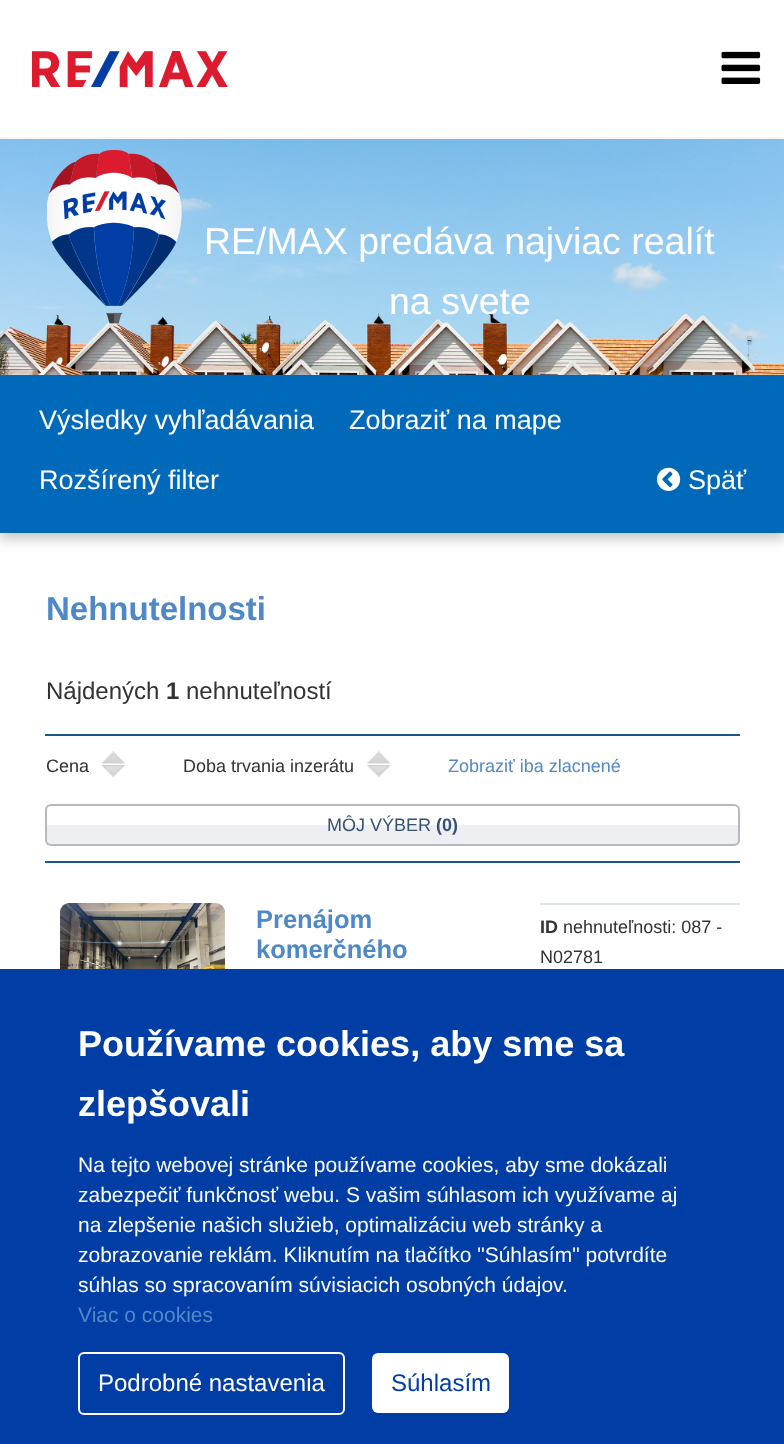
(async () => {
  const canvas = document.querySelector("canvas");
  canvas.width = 784;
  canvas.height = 1444;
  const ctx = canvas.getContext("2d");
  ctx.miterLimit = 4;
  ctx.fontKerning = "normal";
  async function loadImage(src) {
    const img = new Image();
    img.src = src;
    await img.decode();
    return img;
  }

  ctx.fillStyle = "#ffffff";
  ctx.fillRect(0, 0, 784, 1444);
  ctx.fillStyle = "#f8f6f4";
  ctx.fillRect(0, 137, 784, 2);
  ctx.drawImage(await loadImage("img/1.png"), 32, 51, 196, 36);
  ctx.drawImage(await loadImage("img/2.png"), 721, 51, 40, 33);
  ctx.fillStyle = "rgba(0, 0, 0, 0.2)";
  ctx.filter = "blur(6px)";
  ctx.beginPath();
  ctx.rect(0, 383, 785, 157);
  ctx.fill();
  ctx.filter = "none";
  ctx.drawImage(await loadImage("img/3.png"), 0, 139, 784, 236);
  ctx.drawImage(await loadImage("img/4.png"), 47, 150, 135, 174);
  ctx.fillStyle = "#0069ba";
  ctx.fillRect(0, 375, 784, 158);
  ctx.drawImage(await loadImage("img/5.png"), 657, 467, 24, 24);
  ctx.fillStyle = "#1a5881";
  ctx.fillRect(45, 734, 695, 2);
  ctx.fillRect(45, 861, 695, 2);
  ctx.drawImage(await loadImage("img/6.png"), 102, 751, 23, 13);
  ctx.drawImage(await loadImage("img/7.png"), 102, 765, 23, 13);
  ctx.drawImage(await loadImage("img/8.png"), 367, 751, 23, 13);
  ctx.drawImage(await loadImage("img/9.png"), 367, 765, 23, 13);
  ctx.save();
  ctx.beginPath();
  ctx.roundRect(45, 804, 695, 42, 6);
  ctx.clip();
  ctx.fillStyle = "#edeff3";
  ctx.fillRect(45, 825, 695, 20);
  ctx.restore();
  ctx.beginPath();
  ctx.roundRect(46, 805, 693, 40, 5);
  ctx.strokeStyle = "#b6b9bf";
  ctx.lineWidth = 2;
  ctx.stroke();
  ctx.drawImage(await loadImage("img/10.png"), 60, 903, 165, 66);
  ctx.fillStyle = "#dde4ec";
  ctx.fillRect(540, 903, 200, 2);
  ctx.fillStyle = "#003da5";
  ctx.fillRect(0, 969, 784, 475);
  ctx.beginPath();
  ctx.roundRect(79, 1353, 265, 61, 5);
  ctx.strokeStyle = "#ffffff";
  ctx.stroke();
  ctx.fillStyle = "#ffffff";
  ctx.beginPath();
  ctx.roundRect(372, 1353, 137, 60, 6);
  ctx.fill();
  ctx.font = "37.5px Liberation Sans";
  ctx.fillText("RE/MAX predáva najviac realít", 204, 254);
  ctx.fillText("na svete", 389, 314);
  ctx.font = "27px Liberation Sans";
  for (const [text, x, y] of [
    ["Výsledky vyhľadávania", 39, 429],
    ["Zobraziť na mape", 349, 429],
    ["Rozšírený filter", 39, 489],
    ["Späť", 688, 489],
  ]) {
    ctx.fillText(text, x, y);
  }
  ctx.font = "bold 33px Liberation Sans";
  ctx.fillStyle = "#4e88c7";
  ctx.fillText("Nehnutelnosti", 46, 620);
  ctx.font = "24px Liberation Sans";
  ctx.fillStyle = "#333333";
  ctx.fillText("Nájdených", 46, 699);
  ctx.font = "bold 24px Liberation Sans";
  ctx.fillText("1", 166, 699);
  ctx.font = "24px Liberation Sans";
  ctx.fillText("nehnuteľností", 186, 699);
  ctx.font = "18px Liberation Sans";
  ctx.fillText("Cena", 46, 772);
  ctx.fillText("Doba trvania inzerátu", 183, 772);
  ctx.fillStyle = "#5488c7";
  ctx.fillText("Zobraziť iba zlacnené", 448, 772);
  ctx.fillStyle = "#375075";
  ctx.fillText("MÔJ VÝBER", 327, 831);
  ctx.font = "bold 18px Liberation Sans";
  ctx.fillText("(0)", 436, 831);
  ctx.font = "bold 25.5px Liberation Sans";
  ctx.fillStyle = "#4e88c7";
  ctx.fillText("Prenájom", 256, 928);
  ctx.fillText("komerčného", 256, 958);
  ctx.font = "bold 18px Liberation Sans";
  ctx.fillStyle = "#333333";
  ctx.fillText("ID", 540, 933);
  ctx.font = "18px Liberation Sans";
  ctx.fillText("nehnuteľnosti: 087 -", 563, 933);
  ctx.fillText("N02781", 540, 963);
  ctx.font = "bold 36px Liberation Sans";
  ctx.fillStyle = "#ffffff";
  ctx.fillText("Používame cookies, aby sme sa", 78, 1056);
  ctx.fillText("zlepšovali", 78, 1116);
  ctx.font = "21px Liberation Sans";
  for (const [text, x, y] of [
    ["Na tejto webovej stránke používame cookies, aby sme dokázali", 78, 1172],
    ["zabezpečiť funkčnosť webu. S vašim súhlasom ich využívame aj", 78, 1202],
    ["na zlepšenie našich služieb, optimalizáciu web stránky a", 78, 1232],
    ["zobrazovanie reklám. Kliknutím na tlačítko \"Súhlasím\" potvrdíte", 78, 1262],
    ["súhlas so spracovaním súvisiacich osobných údajov.", 78, 1292],
  ]) {
    ctx.fillText(text, x, y);
  }
  ctx.fillStyle = "#5488c7";
  ctx.fillText("Viac o cookies", 78, 1322);
  ctx.font = "24px Liberation Sans";
  ctx.fillStyle = "#ffffff";
  ctx.fillText("Podrobné nastavenia", 98, 1391);
  ctx.fillStyle = "#003da5";
  ctx.fillText("Súhlasím", 391, 1391);
})();
